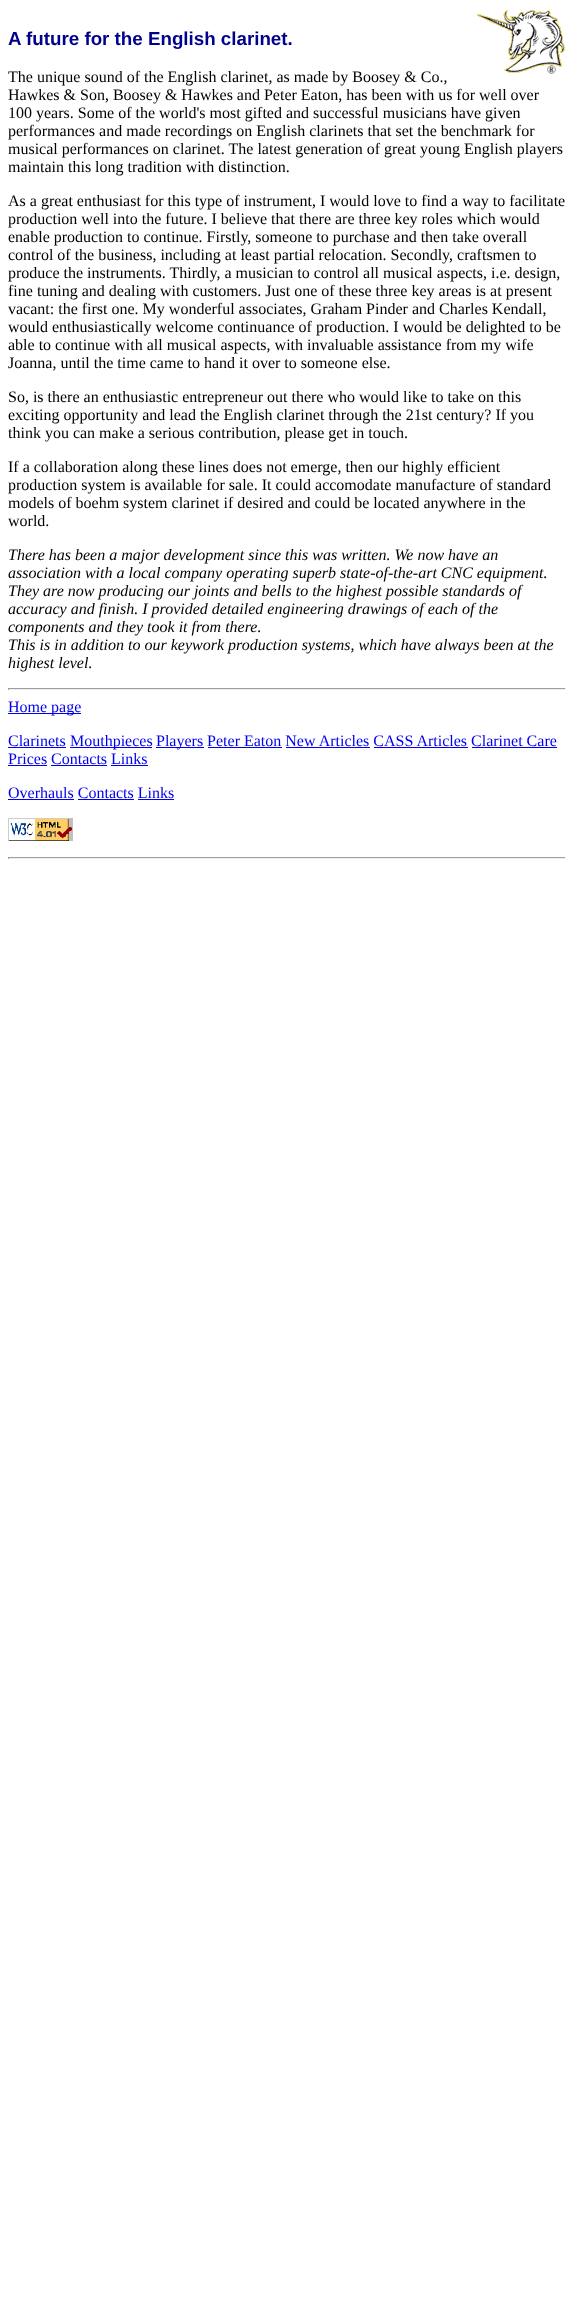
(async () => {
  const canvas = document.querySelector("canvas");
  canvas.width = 574;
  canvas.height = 2316;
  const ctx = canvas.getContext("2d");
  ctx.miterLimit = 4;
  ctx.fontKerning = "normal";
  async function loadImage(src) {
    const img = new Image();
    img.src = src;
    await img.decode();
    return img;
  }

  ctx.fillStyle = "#ffffff";
  ctx.fillRect(0, 0, 574, 2316);
  ctx.drawImage(await loadImage("img/1.png"), 477, 10, 88, 64);
  for (const [x, y, w, h, color] of [
    [8, 688, 558, 1, "#9f9f9f"],
    [565, 688, 1, 2, "#eeeeee"],
    [8, 689, 558, 1, "#eeeeee"],
    [8, 688, 1, 2, "#9f9f9f"],
    [8, 713, 73, 1, "#0000ee"],
    [8, 747, 58, 1, "#0000ee"],
    [70, 747, 82, 1, "#0000ee"],
    [156, 747, 48, 1, "#0000ee"],
    [208, 747, 74, 1, "#0000ee"],
    [286, 747, 84, 1, "#0000ee"],
    [374, 747, 94, 1, "#0000ee"],
    [472, 747, 85, 1, "#0000ee"],
    [8, 765, 39, 1, "#0000ee"],
    [51, 765, 56, 1, "#0000ee"],
    [111, 765, 37, 1, "#0000ee"],
    [8, 799, 66, 1, "#0000ee"],
    [78, 799, 56, 1, "#0000ee"],
    [138, 799, 36, 1, "#0000ee"],
  ]) {
    ctx.fillStyle = color;
    ctx.fillRect(x, y, w, h);
  }
  ctx.drawImage(await loadImage("img/2.png"), 8, 818, 65, 23);
  for (const [x, y, w, h, color] of [
    [8, 857, 558, 1, "#9f9f9f"],
    [565, 857, 1, 2, "#eeeeee"],
    [8, 858, 558, 1, "#eeeeee"],
    [8, 857, 1, 2, "#9f9f9f"],
  ]) {
    ctx.fillStyle = color;
    ctx.fillRect(x, y, w, h);
  }
  ctx.font = "bold 18.75px Liberation Sans";
  ctx.fillStyle = "#00008c";
  ctx.fillText("A future for the English clarinet.", 8, 45);
  ctx.font = "16px Liberation Serif";
  ctx.fillStyle = "#000000";
  for (const [text, x, y] of [
    ["The unique sound of the English clarinet, as made by Boosey & Co.,", 8, 82],
    ["Hawkes & Son, Boosey & Hawkes and Peter Eaton, has been with us for well over", 8, 100],
    ["100 years. Some of the world's most gifted and successful musicians have given", 8, 118],
    ["performances and made recordings on English clarinets that set the benchmark for", 8, 136],
    ["musical performances on clarinet. The latest generation of great young English players", 8, 154],
    ["maintain this long tradition with distinction.", 8, 172],
    ["As a great enthusiast for this type of instrument, I would love to find a way to facilitate", 8, 206],
    ["production well into the future. I believe that there are three key roles which would", 8, 224],
    ["enable production to continue. Firstly, someone to purchase and then take overall", 8, 242],
    ["control of the business, including at least partial relocation. Secondly, craftsmen to", 8, 260],
    ["produce the instruments. Thirdly, a musician to control all musical aspects, i.e. design,", 8, 278],
    ["fine tuning and dealing with customers. Just one of these three key areas is at present", 8, 296],
    ["vacant: the first one. My wonderful associates, Graham Pinder and Charles Kendall,", 8, 314],
    ["would enthusiastically welcome continuance of production. I would be delighted to be", 8, 332],
    ["able to continue with all musical aspects, with invaluable assistance from my wife", 8, 350],
    ["Joanna, until the time came to hand it over to someone else.", 8, 368],
    ["So, is there an enthusiastic entrepreneur out there who would like to take on this", 8, 402],
    ["exciting opportunity and lead the English clarinet through the 21st century? If you", 8, 420],
    ["think you can make a serious contribution, please get in touch.", 8, 438],
    ["If a collaboration along these lines does not emerge, then our highly efficient", 8, 472],
    ["production system is available for sale. It could accomodate manufacture of standard", 8, 490],
    ["models of boehm system clarinet if desired and could be located anywhere in the", 8, 508],
    ["world.", 8, 526],
  ]) {
    ctx.fillText(text, x, y);
  }
  ctx.font = "italic 16px Liberation Serif";
  for (const [text, x, y] of [
    ["There has been a major development since this was written. We now have an", 8, 560],
    ["association with a local company operating superb state-of-the-art CNC equipment.", 8, 578],
    ["They are now producing our joints and bells to the highest possible standards of", 8, 596],
    ["accuracy and finish. I provided detailed engineering drawings of each of the", 8, 614],
    ["components and they took it from there.", 8, 632],
    ["This is in addition to our keywork production systems, which have always been at the", 8, 650],
    ["highest level.", 8, 668],
  ]) {
    ctx.fillText(text, x, y);
  }
  ctx.font = "16px Liberation Serif";
  ctx.fillStyle = "#0000ee";
  for (const [text, x, y] of [
    ["Home page", 8, 712],
    ["Clarinets", 8, 746],
    ["Mouthpieces", 70, 746],
    ["Players Peter Eaton New Articles CASS Articles Clarinet Care", 156, 746],
    ["Prices Contacts Links", 8, 764],
    ["Overhauls Contacts Links", 8, 798],
  ]) {
    ctx.fillText(text, x, y);
  }
})();
